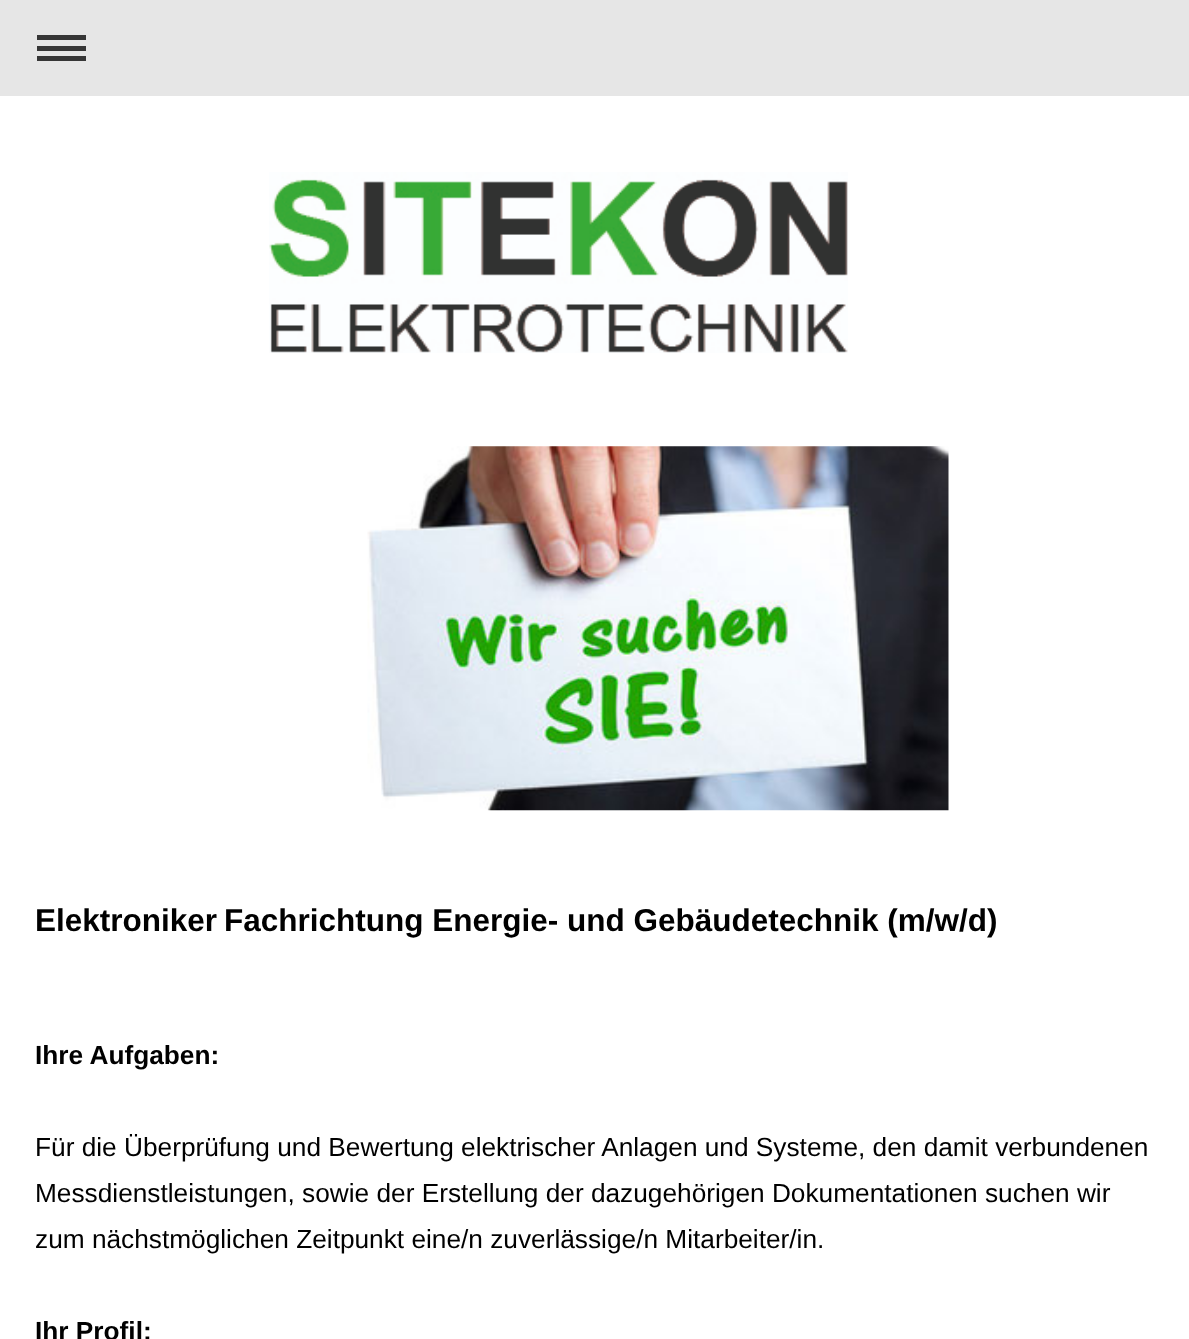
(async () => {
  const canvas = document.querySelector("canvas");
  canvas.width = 1189;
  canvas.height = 1339;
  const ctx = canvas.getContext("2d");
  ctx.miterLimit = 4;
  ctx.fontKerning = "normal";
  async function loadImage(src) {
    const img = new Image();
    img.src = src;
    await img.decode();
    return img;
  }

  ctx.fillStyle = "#ffffff";
  ctx.fillRect(0, 0, 1189, 1339);
  for (const [x, y, w, h, color] of [
    [0, 0, 1189, 96, "#e6e6e6"],
    [37, 46, 49, 5, "#363636"],
    [37, 35, 49, 5, "#363636"],
    [37, 56, 49, 5, "#363636"],
  ]) {
    ctx.fillStyle = color;
    ctx.fillRect(x, y, w, h);
  }
  ctx.drawImage(await loadImage("img/1.png"), 269, 172, 579, 181);
  ctx.drawImage(await loadImage("img/2.png"), 367, 446, 582, 365);
  ctx.font = "bold 31.5px Liberation Sans";
  ctx.fillStyle = "#000000";
  ctx.fillText("Elektroniker", 35, 931);
  ctx.fillText("Fachrichtung Energie- und Gebäudetechnik (m/w/d)", 224, 931);
  ctx.font = "bold 26.25px Liberation Sans";
  ctx.fillText("Ihre Aufgaben:", 35, 1064);
  ctx.font = "26.25px Liberation Sans";
  for (const [text, x, y] of [
    ["Für die Überprüfung und Bewertung elektrischer Anlagen und Systeme, den damit verbundenen", 35, 1156],
    ["Messdienstleistungen, sowie der Erstellung der dazugehörigen Dokumentationen suchen wir", 35, 1202],
    ["zum nächstmöglichen Zeitpunkt eine/n zuverlässige/n Mitarbeiter/in.", 35, 1248],
  ]) {
    ctx.fillText(text, x, y);
  }
  ctx.font = "bold 26.25px Liberation Sans";
  ctx.fillText("Ihr Profil:", 35, 1340);
})();
